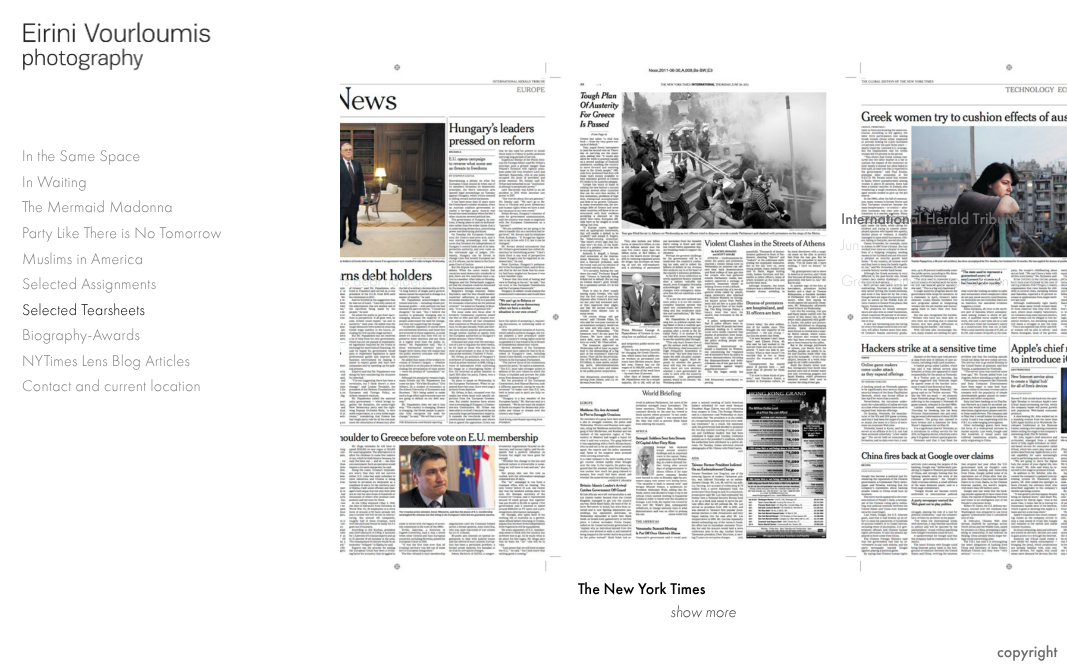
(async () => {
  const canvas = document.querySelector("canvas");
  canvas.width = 1067;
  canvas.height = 669;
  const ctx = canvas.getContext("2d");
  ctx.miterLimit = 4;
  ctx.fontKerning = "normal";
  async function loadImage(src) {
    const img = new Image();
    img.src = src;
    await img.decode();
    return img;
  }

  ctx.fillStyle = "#ffffff";
  ctx.fillRect(0, 0, 1067, 669);
  ctx.drawImage(await loadImage("img/1.png"), 23, 22, 188, 49);
  ctx.drawImage(await loadImage("img/2.png"), 340, 62, 223, 510);
  ctx.drawImage(await loadImage("img/3.png"), 845, 62, 222, 510);
  ctx.drawImage(await loadImage("img/4.png"), 578, 67, 250, 474);
  ctx.letterSpacing = "0.3px";
  ctx.font = "300 16px Futura PT";
  ctx.fillStyle = "#808080";
  for (const [text, x, y] of [
    ["In the Same Space", 22, 161],
    ["In Waiting", 22, 187],
    ["The Mermaid Madonna", 22, 212],
    ["Party Like There is No Tomorrow", 22, 238],
    ["Muslims in America", 22, 264],
    ["Selected Assignments", 22, 289],
  ]) {
    ctx.fillText(text, x, y);
  }
  ctx.fillStyle = "#000000";
  ctx.fillText("Selected Tearsheets", 22, 315);
  ctx.fillStyle = "#808080";
  for (const [text, x, y] of [
    ["Biography-Awards", 22, 340],
    ["NYTimes Lens Blog Articles", 22, 366],
    ["Contact and current location", 22, 391],
  ]) {
    ctx.fillText(text, x, y);
  }
  ctx.save();
  ctx.beginPath();
  ctx.rect(340, 56, 225, 551);
  ctx.clip();
  ctx.letterSpacing = "0px";
  ctx.fillStyle = "#dddede";
  ctx.fillText("ns debt holders", 337, 286);
  ctx.restore();
  ctx.letterSpacing = "0px";
  ctx.font = "500 16px Futura PT";
  ctx.fillStyle = "#6d6d6f";
  ctx.fillText("International Herald Tribune", 841, 224);
  ctx.font = "300 16px Futura PT";
  ctx.fillStyle = "#d5d6d6";
  for (const [text, x, y] of [
    ["Jun", 841, 250],
    ["1", 912, 250],
    ["Greek women try to cushion effects of", 841, 286],
  ]) {
    ctx.fillText(text, x, y);
  }
  ctx.font = "500 16px Futura PT";
  ctx.fillStyle = "#000000";
  ctx.fillText("The New York Times", 578, 594);
  ctx.font = "italic 300 16px Futura PT";
  ctx.fillStyle = "#333333";
  ctx.fillText("show more", 670, 617);
  ctx.font = "500 16px Futura PT";
  ctx.fillStyle = "#6d6d6f";
  ctx.fillText("copyright", 997, 657);
})();
